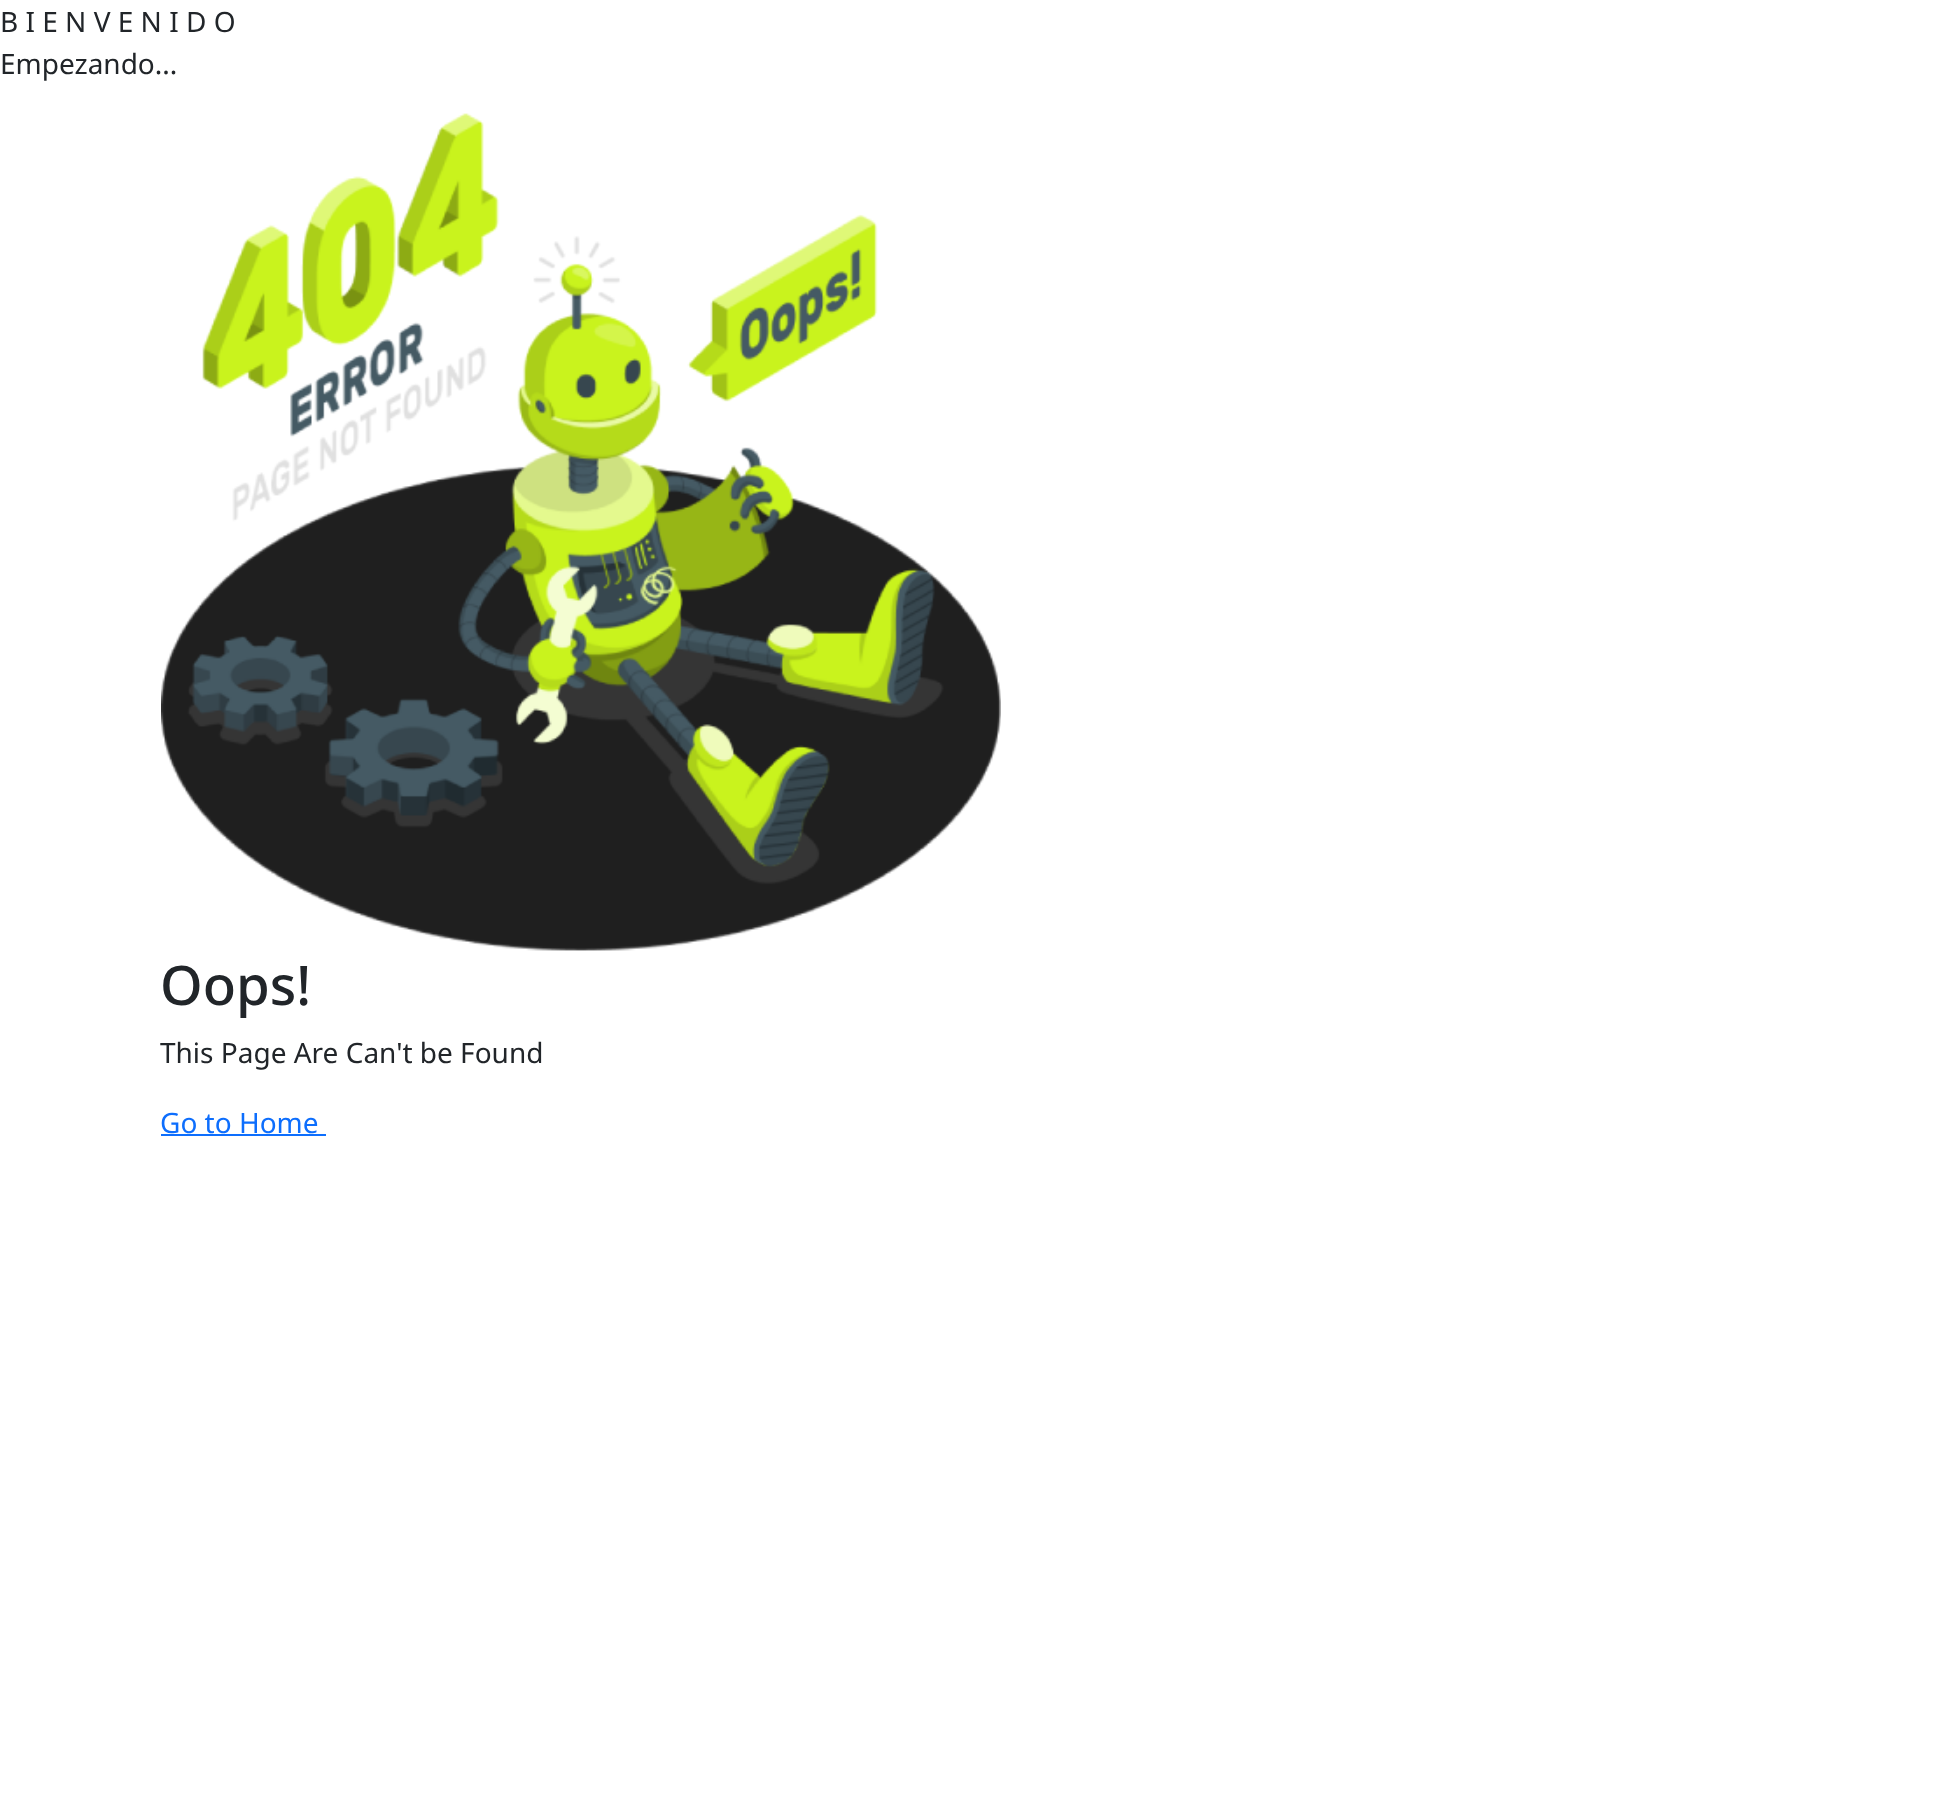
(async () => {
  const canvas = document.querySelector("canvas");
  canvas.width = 1947;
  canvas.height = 1804;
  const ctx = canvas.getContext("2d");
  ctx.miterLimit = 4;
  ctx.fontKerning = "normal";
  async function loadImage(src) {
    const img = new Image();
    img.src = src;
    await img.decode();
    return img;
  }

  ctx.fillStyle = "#ffffff";
  ctx.fillRect(0, 0, 1947, 1804);
  ctx.drawImage(await loadImage("img/1.png"), 161, 113, 840, 838);
  ctx.fillStyle = "#0d6efd";
  ctx.fillRect(161, 1134, 165, 2);
  ctx.font = "28px Noto Sans";
  ctx.fillStyle = "#212529";
  ctx.fillText("B I E N V E N I D O", 0, 32);
  ctx.fillText("Empezando...", 0, 74);
  ctx.font = "500 54.5px Noto Sans";
  ctx.fillText("Oops!", 160, 1005);
  ctx.font = "28px Noto Sans";
  ctx.fillText("This Page Are Can't be Found", 160, 1063);
  ctx.fillStyle = "#0d6efd";
  ctx.fillText("Go to Home", 160, 1133);
})();
